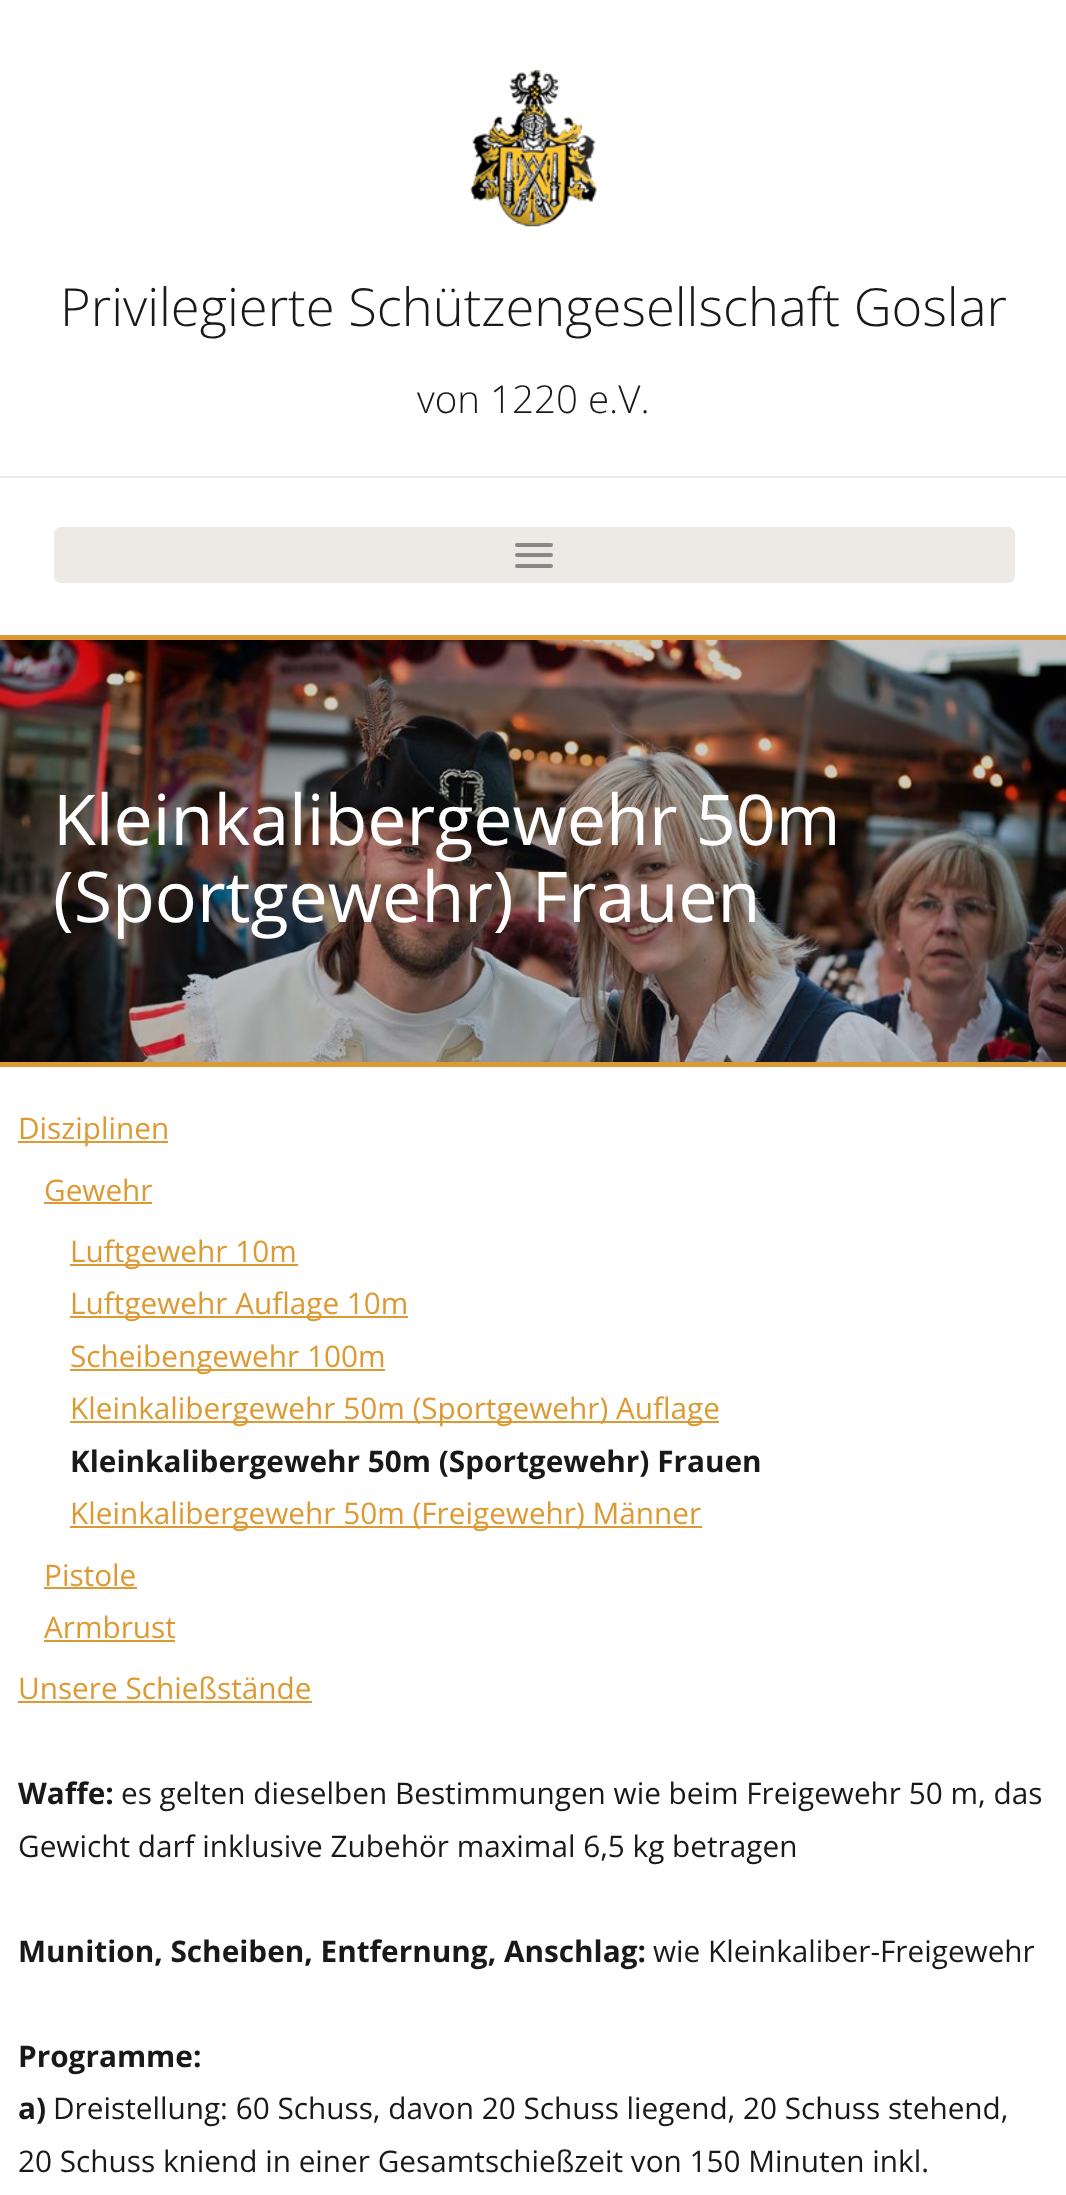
(async () => {
  const canvas = document.querySelector("canvas");
  canvas.width = 1066;
  canvas.height = 2195;
  const ctx = canvas.getContext("2d");
  ctx.miterLimit = 4;
  ctx.fontKerning = "normal";
  async function loadImage(src) {
    const img = new Image();
    img.src = src;
    await img.decode();
    return img;
  }

  ctx.fillStyle = "#ffffff";
  ctx.fillRect(0, 0, 1066, 2195);
  ctx.fillStyle = "#edeae5";
  ctx.fillRect(0, 476, 1066, 2);
  ctx.drawImage(await loadImage("img/1.png"), 470, 70, 127, 157);
  ctx.beginPath();
  ctx.roundRect(54, 527, 961, 56, 7);
  ctx.fill();
  ctx.fillStyle = "#888888";
  ctx.beginPath();
  ctx.roundRect(515, 543, 38, 4, 2);
  ctx.fill();
  ctx.beginPath();
  ctx.roundRect(515, 553, 38, 4, 2);
  ctx.fill();
  ctx.beginPath();
  ctx.roundRect(515, 564, 38, 4, 2);
  ctx.fill();
  ctx.drawImage(await loadImage("img/2.png"), 0, 640, 1066, 422);
  for (const [x, y, w, h, color] of [
    [0, 635, 1066, 5, "#dd9933"],
    [0, 1062, 1066, 5, "#dd9933"],
    [18, 1141, 150, 2, "#dd9933"],
    [44, 1202, 108, 2, "#dd9933"],
    [70, 1264, 228, 2, "#dd9933"],
    [70, 1316, 338, 2, "#dd9933"],
    [70, 1369, 315, 2, "#dd9933"],
    [70, 1421, 649, 2, "#dd9933"],
    [70, 1526, 632, 2, "#dd9933"],
    [44, 1587, 93, 2, "#dd9933"],
    [44, 1640, 131, 2, "#dd9933"],
    [18, 1701, 294, 2, "#dd9933"],
  ]) {
    ctx.fillStyle = color;
    ctx.fillRect(x, y, w, h);
  }
  ctx.font = "300 52.5px Open Sans";
  ctx.fillStyle = "#191919";
  ctx.fillText("Privilegierte Schützengesellschaft Goslar", 60, 326);
  ctx.font = "300 38.5px Open Sans";
  ctx.fillText("von 1220 e.V.", 417, 413);
  ctx.font = "70px Open Sans";
  ctx.fillStyle = "#ffffff";
  ctx.fillText("Kleinkalibergewehr 50m", 53, 845);
  ctx.fillText("(Sportgewehr) Frauen", 53, 922);
  ctx.font = "29.75px Open Sans";
  ctx.fillStyle = "#dd9933";
  for (const [text, x, y] of [
    ["Disziplinen", 18, 1139],
    ["Gewehr", 44, 1201],
    ["Luftgewehr 10m", 70, 1262],
    ["Luftgewehr Auflage 10m", 70, 1314],
    ["Scheibengewehr 100m", 70, 1367],
    ["Kleinkalibergewehr 50m (Sportgewehr) Auflage", 70, 1419],
  ]) {
    ctx.fillText(text, x, y);
  }
  ctx.font = "bold 29.75px Open Sans";
  ctx.fillStyle = "#191919";
  ctx.fillText("Kleinkalibergewehr 50m (Sportgewehr) Frauen", 70, 1472);
  ctx.font = "29.75px Open Sans";
  ctx.fillStyle = "#dd9933";
  for (const [text, x, y] of [
    ["Kleinkalibergewehr 50m (Freigewehr) Männer", 70, 1524],
    ["Pistole", 44, 1586],
    ["Armbrust", 44, 1638],
    ["Unsere Schießstände", 18, 1699],
  ]) {
    ctx.fillText(text, x, y);
  }
  ctx.font = "bold 29.75px Open Sans";
  ctx.fillStyle = "#191919";
  ctx.fillText("Waffe:", 18, 1804);
  ctx.font = "29.75px Open Sans";
  ctx.fillText("es gelten dieselben Bestimmungen wie beim Freigewehr 50 m, das", 121, 1804);
  ctx.fillText("Gewicht darf inklusive Zubehör maximal 6,5 kg betragen", 18, 1857);
  ctx.font = "bold 29.75px Open Sans";
  ctx.fillText("Munition, Scheiben, Entfernung, Anschlag:", 18, 1962);
  ctx.font = "29.75px Open Sans";
  ctx.fillText("wie Kleinkaliber-Freigewehr", 653, 1962);
  ctx.font = "bold 29.75px Open Sans";
  ctx.fillText("Programme:", 18, 2067);
  ctx.fillText("a)", 18, 2119);
  ctx.font = "29.75px Open Sans";
  ctx.fillText("Dreistellung: 60 Schuss, davon 20 Schuss liegend, 20 Schuss stehend,", 53, 2119);
  ctx.fillText("20 Schuss kniend in einer Gesamtschießzeit von 150 Minuten inkl.", 18, 2172);
})();
